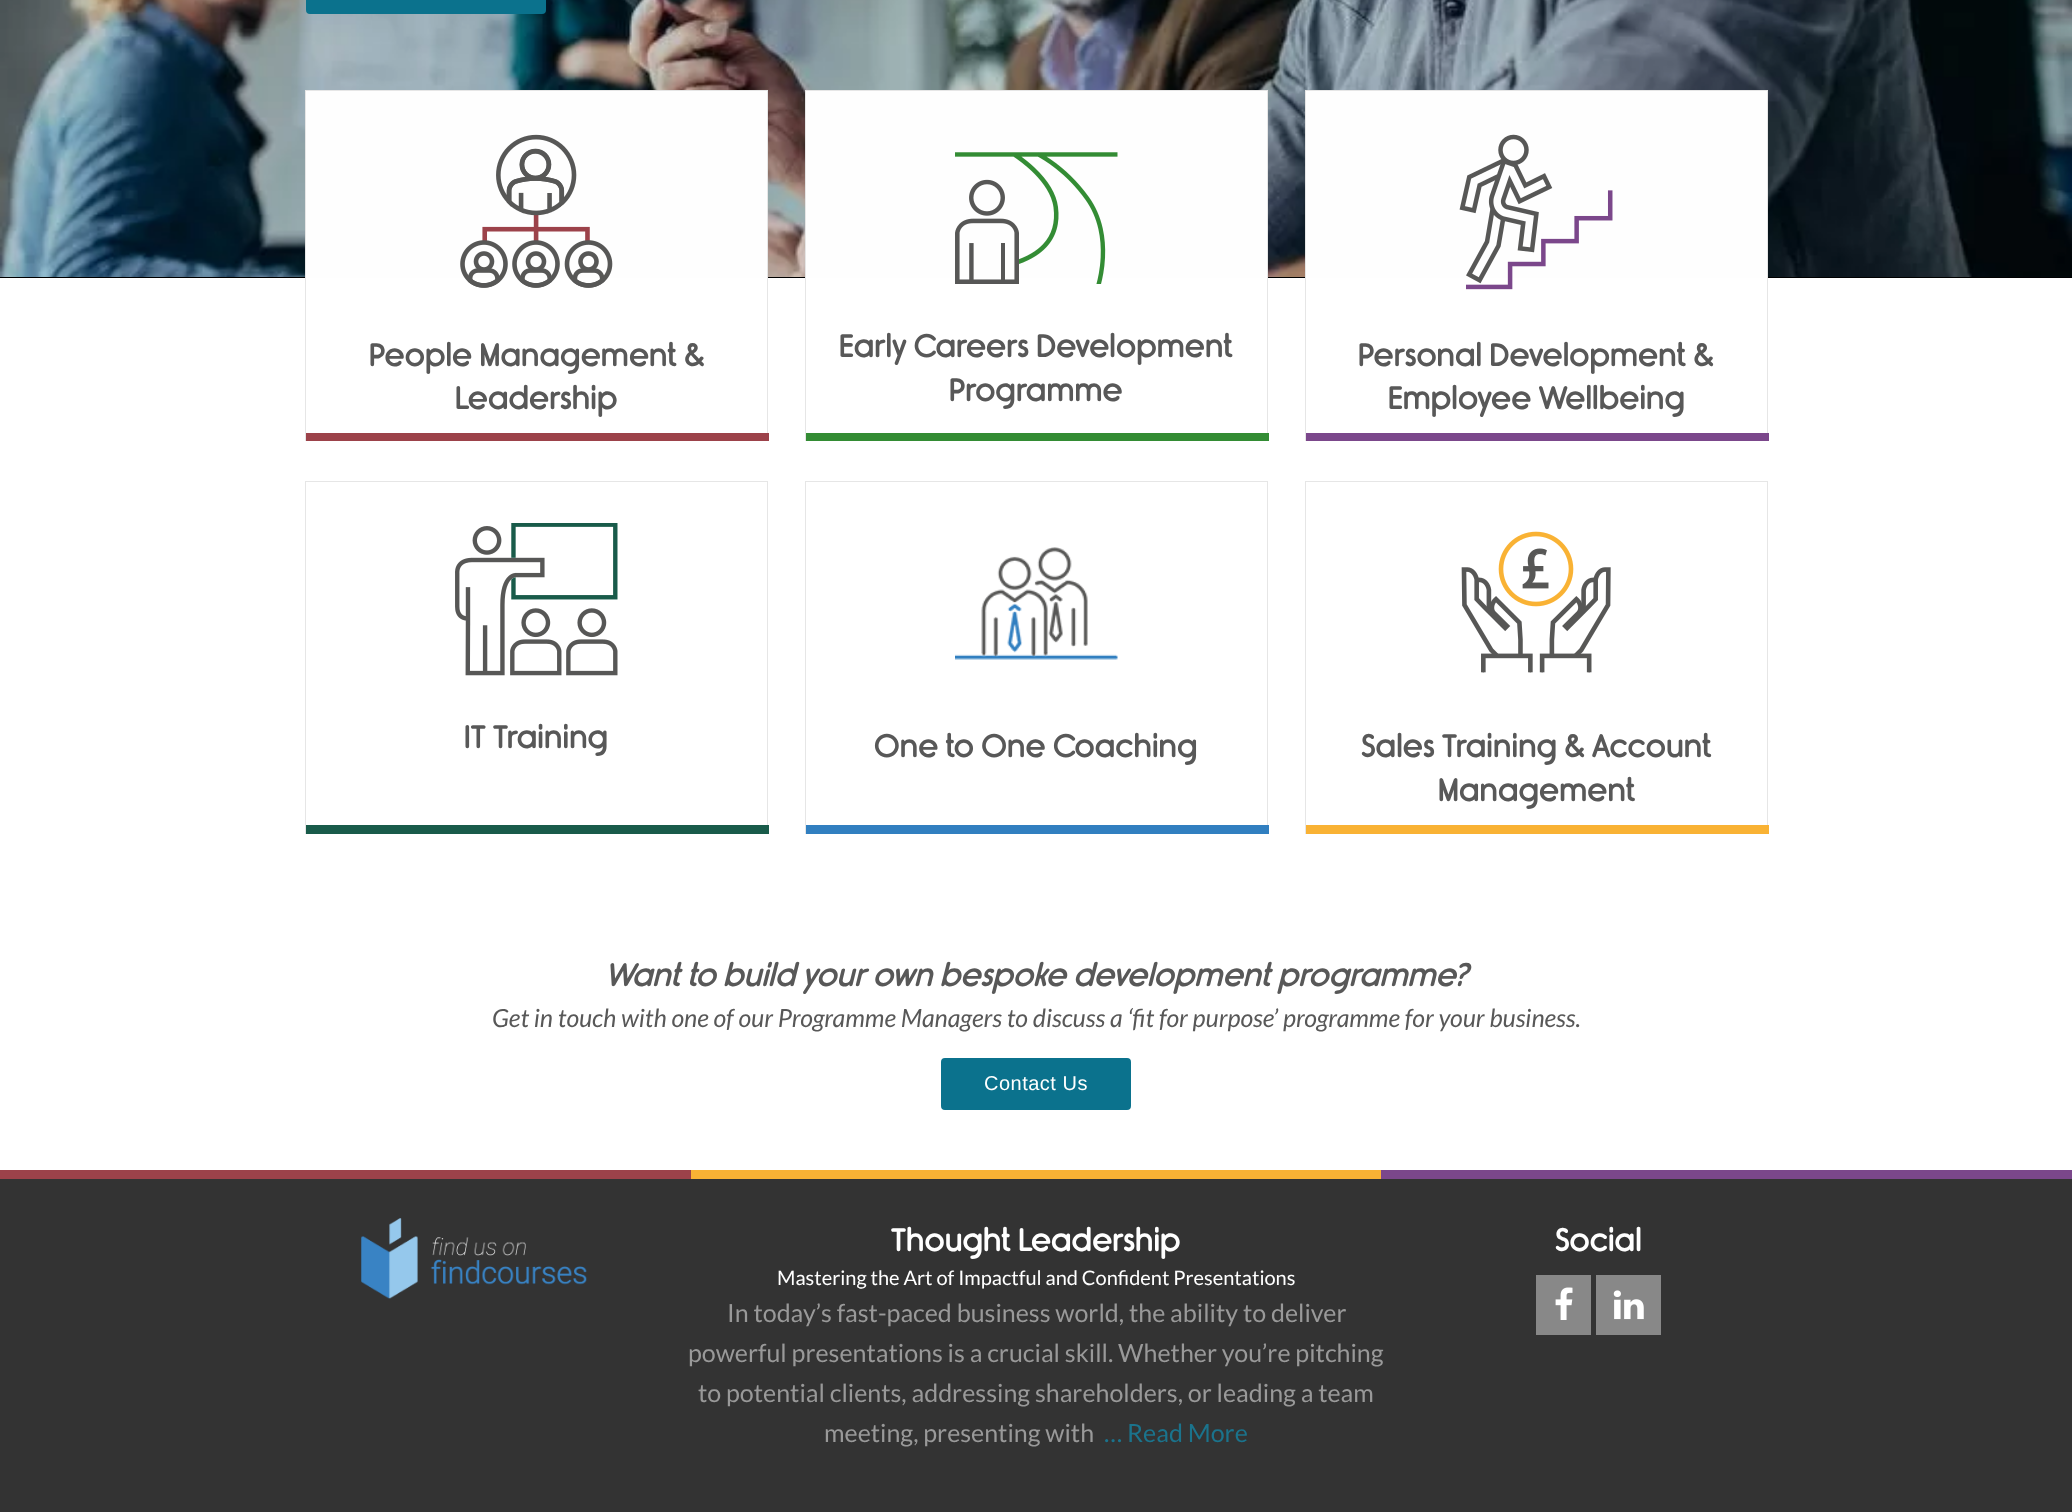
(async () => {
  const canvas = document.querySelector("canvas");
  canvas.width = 2072;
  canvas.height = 1512;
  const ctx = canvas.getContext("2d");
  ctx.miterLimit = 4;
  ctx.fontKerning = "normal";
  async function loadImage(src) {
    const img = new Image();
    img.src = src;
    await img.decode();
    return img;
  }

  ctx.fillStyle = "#ffffff";
  ctx.fillRect(0, 0, 2072, 1512);
  ctx.fillStyle = "#000000";
  ctx.fillRect(0, 277, 2072, 1);
  ctx.drawImage(await loadImage("img/1.png"), 0, 0, 2072, 277);
  ctx.fillStyle = "#0b728d";
  ctx.beginPath();
  ctx.roundRect(307.5, -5.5, 237, 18, 2.5);
  ctx.fill();
  ctx.strokeStyle = "#0b728d";
  ctx.lineWidth = 3;
  ctx.stroke();
  ctx.fillStyle = "#fefefe";
  ctx.fillRect(306, 91, 461, 187);
  ctx.strokeStyle = "#e6e6e6";
  ctx.lineWidth = 1;
  ctx.strokeRect(305.5, 90.5, 462, 350);
  ctx.drawImage(await loadImage("img/2.png"), 460, 134, 153, 154);
  ctx.fillStyle = "#9c424a";
  ctx.fillRect(306, 433, 463, 8);
  ctx.fillStyle = "#fefefe";
  ctx.fillRect(806, 91, 461, 187);
  ctx.strokeRect(805.5, 90.5, 462, 350);
  ctx.drawImage(await loadImage("img/3.png"), 955, 152, 163, 132);
  ctx.fillStyle = "#338c34";
  ctx.fillRect(806, 433, 463, 8);
  ctx.fillStyle = "#fefefe";
  ctx.fillRect(1306, 91, 461, 187);
  ctx.strokeRect(1305.5, 90.5, 462, 350);
  ctx.drawImage(await loadImage("img/4.png"), 1459, 134, 154, 156);
  ctx.fillStyle = "#7b478b";
  ctx.fillRect(1306, 433, 463, 8);
  ctx.strokeRect(305.5, 481.5, 462, 352);
  ctx.drawImage(await loadImage("img/5.png"), 455, 523, 163, 153);
  ctx.fillStyle = "#195b4a";
  ctx.fillRect(306, 825, 463, 9);
  ctx.strokeRect(805.5, 481.5, 462, 352);
  ctx.drawImage(await loadImage("img/6.png"), 955, 547, 163, 113);
  ctx.fillStyle = "#317fc0";
  ctx.fillRect(806, 825, 463, 9);
  ctx.strokeRect(1305.5, 481.5, 462, 352);
  ctx.drawImage(await loadImage("img/7.png"), 1461, 531, 150, 142);
  ctx.fillStyle = "#f9b234";
  ctx.fillRect(1306, 825, 463, 9);
  ctx.fillStyle = "#0b728d";
  ctx.beginPath();
  ctx.roundRect(942.5, 1059.5, 187, 49, 2.5);
  ctx.fill();
  ctx.strokeStyle = "#0b728d";
  ctx.lineWidth = 3;
  ctx.stroke();
  for (const [x, y, w, h, color] of [
    [0, 1170, 691, 9, "#9c424a"],
    [691, 1170, 690, 9, "#f9b234"],
    [1381, 1170, 691, 9, "#7b478b"],
    [0, 1179, 2072, 333, "#333333"],
  ]) {
    ctx.fillStyle = color;
    ctx.fillRect(x, y, w, h);
  }
  ctx.drawImage(await loadImage("img/8.png"), 361, 1218, 226, 81);
  ctx.fillStyle = "#888888";
  ctx.fillRect(1536, 1275, 55, 60);
  ctx.drawImage(await loadImage("img/9.png"), 1555, 1287, 18, 33);
  ctx.fillRect(1596, 1275, 65, 60);
  ctx.drawImage(await loadImage("img/10.png"), 1613, 1290, 31, 30);
  ctx.font = "31.25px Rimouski";
  ctx.fillStyle = "#585858";
  for (const [text, x, y] of [
    ["People Management &", 369, 366],
    ["Leadership", 455, 409],
    ["Early Careers Development", 839, 357],
    ["Programme", 949, 401],
    ["Personal Development &", 1358, 366],
    ["Employee Wellbeing", 1388, 409],
    ["IT Training", 464, 748],
    ["One to One Coaching", 874, 757],
    ["Sales Training & Account", 1361, 757],
    ["Management", 1438, 801],
  ]) {
    ctx.fillText(text, x, y);
  }
  ctx.font = "italic 31.25px Rimouski";
  ctx.fillText("Want to build your own bespoke development programme?", 605, 986);
  ctx.font = "italic 25px Lato";
  ctx.fillText("Get in touch with one of our Programme Managers to discuss a ‘fit for purpose’ programme for your business.", 492, 1027);
  ctx.letterSpacing = "0.5px";
  ctx.font = "20px Liberation Sans";
  ctx.fillStyle = "#ffffff";
  ctx.fillText("Contact Us", 984, 1090);
  ctx.letterSpacing = "0px";
  ctx.font = "31.25px Rimouski";
  ctx.fillText("Thought Leadership", 891, 1251);
  ctx.font = "20px Lato";
  ctx.fillText("Mastering the Art of Impactful and Confident Presentations", 777, 1285);
  ctx.font = "25px Lato";
  ctx.fillStyle = "#999999";
  for (const [text, x, y] of [
    ["In today’s fast-paced business world, the ability to deliver", 727, 1322],
    ["powerful presentations is a crucial skill. Whether you’re pitching", 688, 1362],
    ["to potential clients, addressing shareholders, or leading a team", 698, 1402],
    ["meeting, presenting with", 824, 1442],
  ]) {
    ctx.fillText(text, x, y);
  }
  ctx.fillStyle = "#1b738c";
  ctx.fillText("… Read More", 1104, 1442);
  ctx.font = "31.25px Rimouski";
  ctx.fillStyle = "#ffffff";
  ctx.fillText("Social", 1555, 1251);
})();
